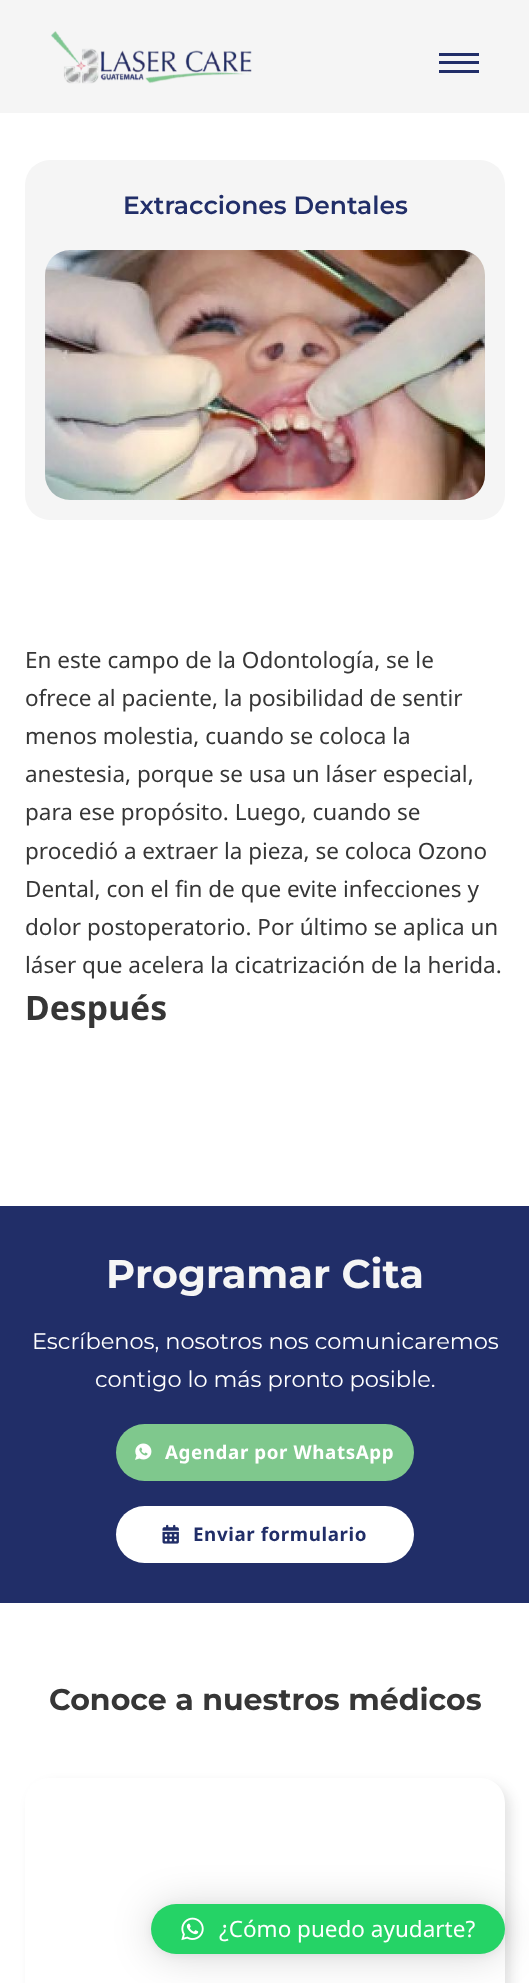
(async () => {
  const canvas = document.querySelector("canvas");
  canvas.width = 529;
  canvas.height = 1983;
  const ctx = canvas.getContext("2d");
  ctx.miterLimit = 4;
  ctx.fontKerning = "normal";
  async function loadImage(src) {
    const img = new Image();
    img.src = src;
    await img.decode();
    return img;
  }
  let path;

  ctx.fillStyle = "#ffffff";
  ctx.fillRect(0, 0, 529, 1983);
  ctx.fillStyle = "#f5f5f5";
  ctx.fillRect(0, 0, 529, 113);
  ctx.drawImage(await loadImage("img/1.png"), 51, 31, 201, 53);
  for (const [x, y, w, h, color] of [
    [439, 53, 40, 3, "#212e68"],
    [439, 61, 40, 3, "#212e68"],
    [439, 70, 40, 3, "#212e68"],
  ]) {
    ctx.fillStyle = color;
    ctx.fillRect(x, y, w, h);
  }
  ctx.fillStyle = "#f5f5f5";
  ctx.beginPath();
  ctx.roundRect(25, 160, 480, 360, 25);
  ctx.fill();
  ctx.drawImage(await loadImage("img/2.png"), 45, 250, 440, 250);
  ctx.fillStyle = "#212e68";
  ctx.fillRect(0, 1206, 529, 397);
  ctx.fillStyle = "#7fc88d";
  ctx.beginPath();
  ctx.roundRect(116, 1424, 298, 57, 28.5);
  ctx.fill();
  ctx.drawImage(await loadImage("img/3.png"), 135, 1443, 17, 17);
  ctx.fillStyle = "#ffffff";
  ctx.beginPath();
  ctx.roundRect(116, 1506, 298, 57, 28.5);
  ctx.fill();
  ctx.drawImage(await loadImage("img/4.png"), 162, 1524, 17, 20);
  ctx.save();
  path = new Path2D("M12 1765H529V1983H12ZM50 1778H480C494 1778 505 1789 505 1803V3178C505 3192 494 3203 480 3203H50C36 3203 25 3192 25 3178V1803C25 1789 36 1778 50 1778Z");
  ctx.clip(path, "evenodd");
  ctx.fillStyle = "rgba(33, 33, 33, 0.12)";
  ctx.filter = "blur(6px)";
  ctx.beginPath();
  ctx.roundRect(31, 1784, 480, 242, 25);
  ctx.fill();
  ctx.filter = "none";
  ctx.restore();
  ctx.fillStyle = "rgba(0, 0, 0, 0.16)";
  ctx.filter = "blur(20px)";
  ctx.beginPath();
  ctx.roundRect(151, 1906, 354, 50, 25);
  ctx.fill();
  ctx.filter = "none";
  ctx.fillStyle = "rgba(0, 0, 0, 0.06)";
  ctx.filter = "blur(4px)";
  ctx.beginPath();
  ctx.roundRect(151, 1905, 354, 50, 25);
  ctx.fill();
  ctx.filter = "none";
  ctx.fillStyle = "#25d366";
  ctx.beginPath();
  ctx.roundRect(151, 1904, 354, 50, 25);
  ctx.fill();
  ctx.drawImage(await loadImage("img/5.png"), 181, 1917, 23, 24);
  ctx.font = "600 25px Montserrat";
  ctx.fillStyle = "#212e68";
  ctx.fillText("Extracciones Dentales", 123, 214);
  ctx.font = "22.5px Noto Sans";
  ctx.fillStyle = "#363636";
  for (const [text, x, y] of [
    ["En este campo de la Odontología, se le", 25, 668],
    ["ofrece al paciente, la posibilidad de sentir", 25, 706],
    ["menos molestia, cuando se coloca la", 25, 744],
    ["anestesia, porque se usa un láser especial,", 25, 782],
    ["para ese propósito. Luego, cuando se", 25, 820],
    ["procedió a extraer la pieza, se coloca Ozono", 25, 859],
    ["Dental, con el fin de que evite infecciones y", 25, 897],
    ["dolor postoperatorio. Por último se aplica un", 25, 935],
    ["láser que acelera la cicatrización de la herida.", 25, 973],
  ]) {
    ctx.fillText(text, x, y);
  }
  ctx.font = "bold 33.75px Noto Sans";
  ctx.fillText("Después", 25, 1020);
  ctx.font = "bold 40px Montserrat";
  ctx.fillStyle = "#f5f5f5";
  ctx.fillText("Programar Cita", 106, 1288);
  ctx.font = "22.5px Montserrat";
  ctx.fillStyle = "#ffffff";
  ctx.fillText("Escríbenos, nosotros nos comunicaremos", 32, 1349);
  ctx.fillText("contigo lo más pronto posible.", 95, 1387);
  ctx.letterSpacing = "0.6px";
  ctx.font = "bold 18.75px Noto Sans";
  ctx.fillText("Agendar por WhatsApp", 165, 1459);
  ctx.fillStyle = "#212e68";
  ctx.fillText("Enviar formulario", 193, 1541);
  ctx.letterSpacing = "0px";
  ctx.font = "bold 30px Montserrat";
  ctx.fillStyle = "#363636";
  ctx.fillText("Conoce a nuestros médicos", 49, 1710);
  ctx.font = "22.5px Noto Sans";
  ctx.fillStyle = "#ffffff";
  ctx.fillText("¿Cómo puedo ayudarte?", 219, 1937);
})();
